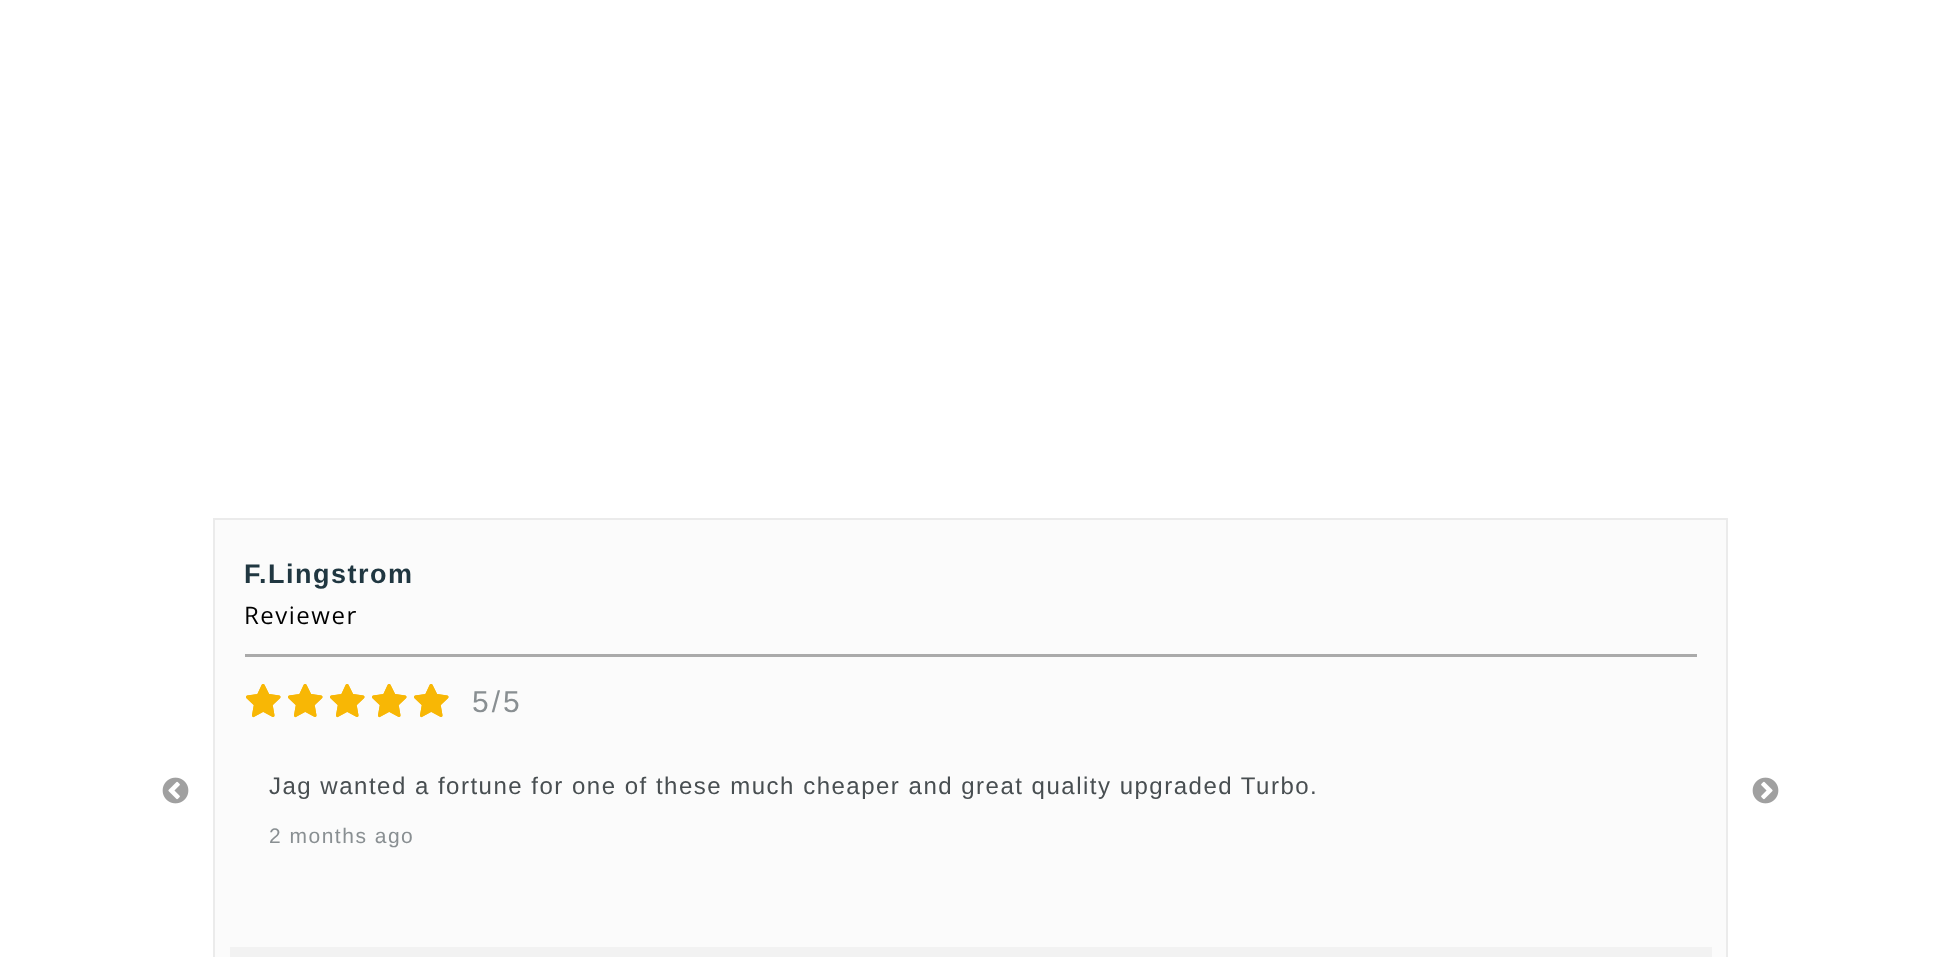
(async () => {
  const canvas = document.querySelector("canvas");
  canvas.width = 1939;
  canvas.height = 957;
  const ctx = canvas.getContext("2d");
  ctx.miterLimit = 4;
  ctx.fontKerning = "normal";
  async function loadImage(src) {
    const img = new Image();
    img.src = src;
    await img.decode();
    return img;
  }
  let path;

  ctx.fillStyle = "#ffffff";
  ctx.fillRect(0, 0, 1939, 957);
  ctx.drawImage(await loadImage("img/1.png"), 162, 777, 27, 27);
  ctx.fillStyle = "#fbfbfb";
  ctx.beginPath();
  ctx.rect(214, 519, 1513, 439);
  ctx.fill();
  ctx.strokeStyle = "#ebebeb";
  ctx.lineWidth = 2;
  ctx.stroke();
  ctx.fillStyle = "#aaaaaa";
  ctx.fillRect(245, 654, 1452, 3);
  path = new Path2D("M263 710L253.5 715.5L255.5 704.5L247.5 697L258.5 695.5L263 685.5L268 695.5L279 697L271 704.5L273 715.5Z");
  ctx.strokeStyle = "#f8b705";
  ctx.lineWidth = 3.1;
  ctx.lineCap = "round";
  ctx.lineJoin = "round";
  ctx.stroke(path);
  path = new Path2D("M305 710L295.5 715.5L297.5 704.5L289.5 697L300.5 695.5L305 685.5L310 695.5L321 697L313 704.5L315 715.5Z");
  ctx.stroke(path);
  path = new Path2D("M347 710L337.5 715.5L339.5 704.5L331.5 697L342.5 695.5L347 685.5L352 695.5L363 697L355 704.5L357 715.5Z");
  ctx.stroke(path);
  path = new Path2D("M389 710L379.5 715.5L381.5 704.5L373.5 697L384.5 695.5L389 685.5L394 695.5L405 697L397 704.5L399 715.5Z");
  ctx.stroke(path);
  path = new Path2D("M431 710L421.5 715.5L423.5 704.5L415.5 697L426.5 695.5L431 685.5L436 695.5L447 697L439 704.5L441 715.5Z");
  ctx.stroke(path);
  ctx.drawImage(await loadImage("img/2.png"), 246, 684, 35, 33);
  ctx.drawImage(await loadImage("img/2.png"), 288, 684, 35, 33);
  ctx.drawImage(await loadImage("img/2.png"), 330, 684, 35, 33);
  ctx.drawImage(await loadImage("img/2.png"), 372, 684, 35, 33);
  ctx.drawImage(await loadImage("img/2.png"), 414, 684, 35, 33);
  ctx.fillStyle = "#f2f2f2";
  ctx.fillRect(230, 947, 1482, 10);
  ctx.drawImage(await loadImage("img/3.png"), 1752, 777, 27, 27);
  ctx.letterSpacing = "1.5px";
  ctx.font = "bold 27px Liberation Sans";
  ctx.fillStyle = "#203741";
  ctx.fillText("F.Lingstrom", 244, 583);
  ctx.font = "24px Open Sans";
  ctx.fillStyle = "#000000";
  ctx.fillText("Reviewer", 244, 624);
  ctx.letterSpacing = "3px";
  ctx.font = "30px Liberation Sans";
  ctx.fillStyle = "#898f92";
  ctx.fillText("5/5", 472, 712);
  ctx.letterSpacing = "1.5px";
  ctx.font = "24px Liberation Sans";
  ctx.fillStyle = "#484e51";
  ctx.fillText("Jag wanted a fortune for one of these much cheaper and great quality upgraded Turbo.", 269, 794);
  ctx.font = "21px Liberation Sans";
  ctx.fillStyle = "#898f92";
  ctx.fillText("2 months ago", 269, 843);
})();
